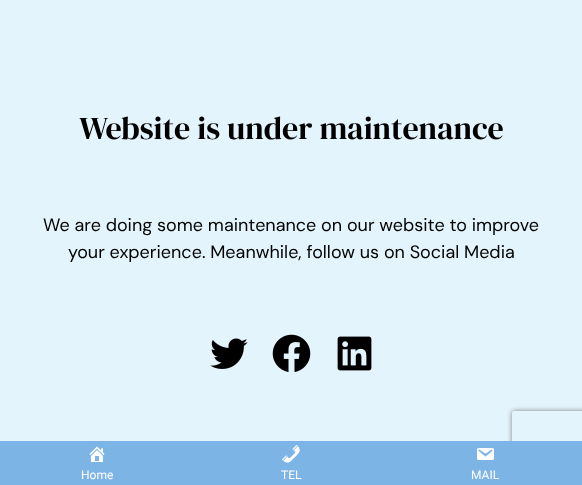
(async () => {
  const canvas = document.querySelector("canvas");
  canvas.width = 582;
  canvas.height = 485;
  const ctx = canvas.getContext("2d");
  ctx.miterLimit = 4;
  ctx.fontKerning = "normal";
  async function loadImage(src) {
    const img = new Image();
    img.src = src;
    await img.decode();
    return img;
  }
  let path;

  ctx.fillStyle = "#e4f4fc";
  ctx.fillRect(0, 0, 582, 485);
  ctx.drawImage(await loadImage("img/1.png"), 210, 338, 38, 31);
  ctx.drawImage(await loadImage("img/2.png"), 272, 334, 39, 38);
  ctx.drawImage(await loadImage("img/3.png"), 337, 336, 35, 35);
  ctx.save();
  path = new Path2D("M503 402H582V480H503ZM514 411H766C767 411 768 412 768 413V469C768 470 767 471 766 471H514C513 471 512 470 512 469V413C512 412 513 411 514 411Z");
  ctx.clip(path, "evenodd");
  ctx.fillStyle = "#808080";
  ctx.filter = "blur(2.5px)";
  ctx.beginPath();
  ctx.roundRect(512, 411, 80, 60, 2);
  ctx.fill();
  ctx.filter = "none";
  ctx.restore();
  ctx.fillStyle = "#7db4e6";
  ctx.fillRect(0, 441, 582, 44);
  ctx.drawImage(await loadImage("img/4.png"), 89, 446, 16, 16);
  ctx.drawImage(await loadImage("img/5.png"), 282, 445, 18, 18);
  ctx.drawImage(await loadImage("img/6.png"), 477, 448, 17, 12);
  ctx.font = "32px DM Serif Display";
  ctx.fillStyle = "#000000";
  ctx.fillText("Website is under maintenance", 79, 139);
  ctx.font = "18px DM Sans";
  ctx.fillText("We are doing some maintenance on our website to improve", 43, 231);
  ctx.fillText("your experience. Meanwhile, follow us on Social Media", 68, 258);
  ctx.font = "12px Roboto";
  ctx.fillStyle = "#ffffff";
  for (const [text, x, y] of [
    ["Home", 81, 479],
    ["TEL", 281, 479],
    ["MAIL", 471, 479],
  ]) {
    ctx.fillText(text, x, y);
  }
})();
